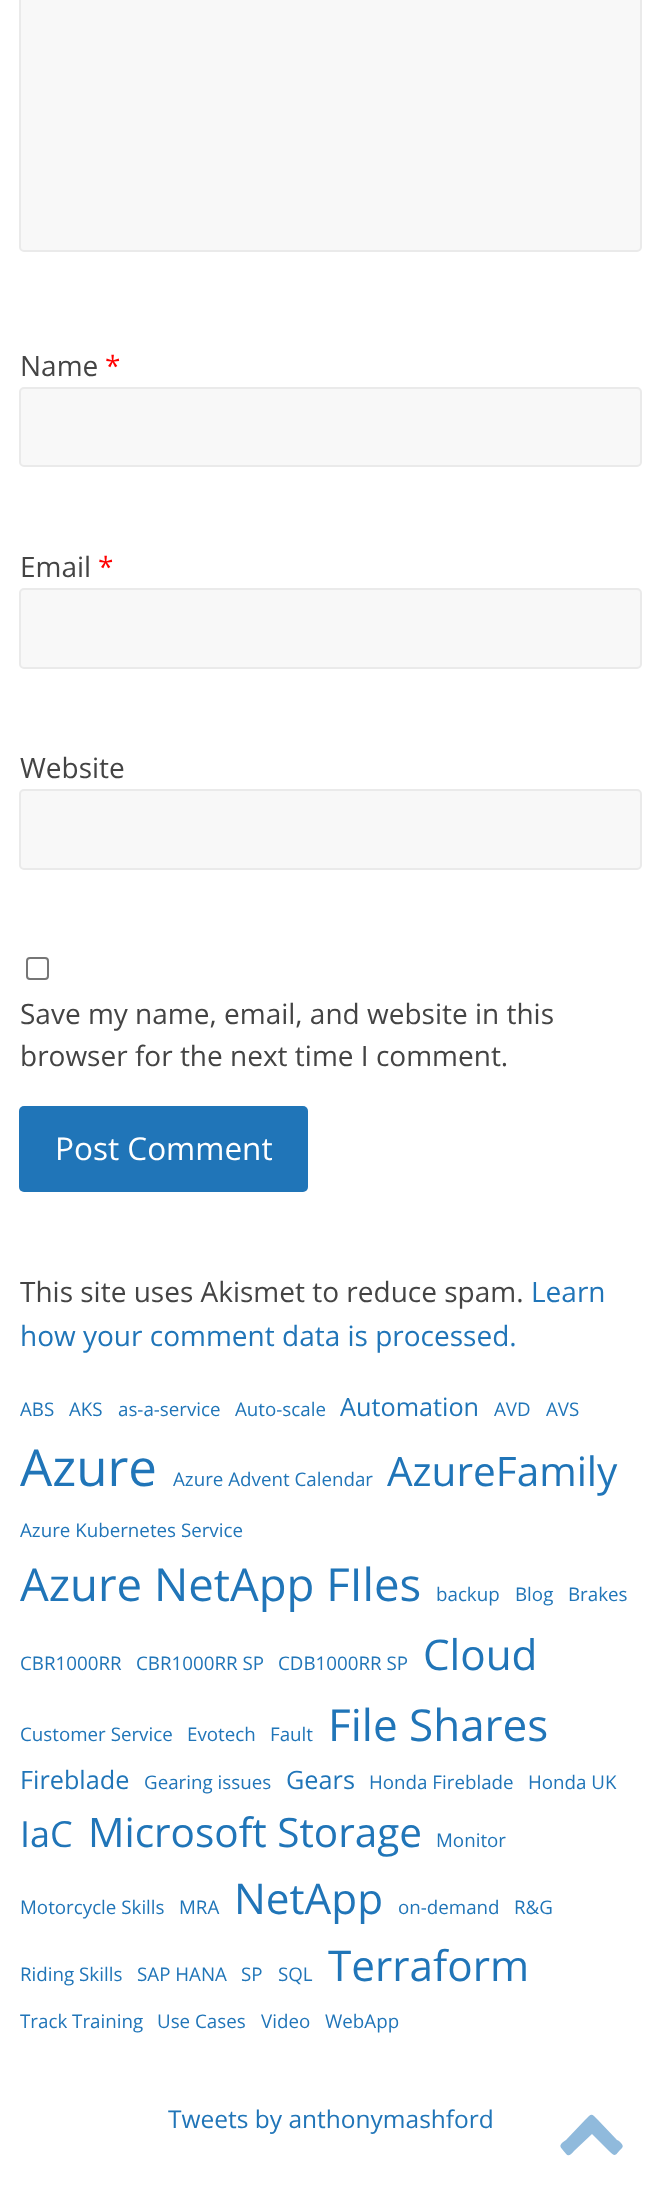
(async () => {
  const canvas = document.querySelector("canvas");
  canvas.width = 661;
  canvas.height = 2205;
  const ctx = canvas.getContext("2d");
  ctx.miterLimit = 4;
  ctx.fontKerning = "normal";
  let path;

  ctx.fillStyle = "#ffffff";
  ctx.fillRect(0, 0, 661, 2205);
  ctx.fillStyle = "#f8f8f8";
  ctx.beginPath();
  ctx.roundRect(20, -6, 621, 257, 4);
  ctx.fill();
  ctx.strokeStyle = "#eaeaea";
  ctx.lineWidth = 2;
  ctx.stroke();
  ctx.beginPath();
  ctx.roundRect(20, 388, 621, 78, 4);
  ctx.fill();
  ctx.stroke();
  ctx.beginPath();
  ctx.roundRect(20, 589, 621, 79, 4);
  ctx.fill();
  ctx.stroke();
  ctx.beginPath();
  ctx.roundRect(20, 790, 621, 79, 4);
  ctx.fill();
  ctx.stroke();
  ctx.beginPath();
  ctx.roundRect(27, 958, 21, 21, 3);
  ctx.strokeStyle = "#767676";
  ctx.stroke();
  ctx.fillStyle = "#2075b8";
  ctx.beginPath();
  ctx.roundRect(19, 1106, 289, 86, 5);
  ctx.fill();
  ctx.fillStyle = "#90badc";
  path = new Path2D("M622 2148C615 2155 616 2158 609 2151L592 2134L574 2151C568 2158 568 2156 562 2149C558 2145 562 2143 566 2140L585 2120C592 2113 591 2113 598 2120L617 2140C618 2140 625 2145 622 2148Z");
  ctx.fill(path);
  ctx.font = "28px Open Sans";
  ctx.fillStyle = "#444444";
  ctx.fillText("Name", 20, 376);
  ctx.fillStyle = "#ff0000";
  ctx.fillText("*", 105, 376);
  ctx.fillStyle = "#444444";
  ctx.fillText("Email", 20, 577);
  ctx.fillStyle = "#ff0000";
  ctx.fillText("*", 98, 577);
  ctx.fillStyle = "#444444";
  for (const [text, x, y] of [
    ["Website", 20, 778],
    ["Save my name, email, and website in this", 20, 1024],
    ["browser for the next time I comment.", 20, 1066],
  ]) {
    ctx.fillText(text, x, y);
  }
  ctx.font = "31.5px Open Sans";
  ctx.fillStyle = "#ffffff";
  ctx.fillText("Post Comment", 55, 1160);
  ctx.font = "28px Open Sans";
  ctx.fillStyle = "#444444";
  ctx.fillText("This site uses Akismet to reduce spam.", 20, 1302);
  ctx.fillStyle = "#2075b8";
  ctx.fillText("Learn", 531, 1302);
  ctx.fillText("how your comment data is processed.", 20, 1346);
  ctx.font = "18.75px Open Sans";
  for (const [text, x, y] of [
    ["ABS", 20, 1416],
    ["AKS", 69, 1416],
    ["as-a-service", 118, 1416],
    ["Auto-scale", 235, 1416],
  ]) {
    ctx.fillText(text, x, y);
  }
  ctx.font = "25.25px Open Sans";
  ctx.fillText("Automation", 340, 1416);
  ctx.font = "18.75px Open Sans";
  ctx.fillText("AVD", 494, 1416);
  ctx.fillText("AVS", 546, 1416);
  ctx.font = "51px Open Sans";
  ctx.fillText("Azure", 20, 1486);
  ctx.font = "18.75px Open Sans";
  ctx.fillText("Azure Advent Calendar", 173, 1486);
  ctx.font = "40.5px Open Sans";
  ctx.fillText("AzureFamily", 387, 1486);
  ctx.font = "18.75px Open Sans";
  ctx.fillText("Azure Kubernetes Service", 20, 1537);
  ctx.font = "45.5px Open Sans";
  ctx.fillText("Azure NetApp FIles", 20, 1601);
  ctx.font = "18.75px Open Sans";
  for (const [text, x, y] of [
    ["backup", 436, 1601],
    ["Blog", 515, 1601],
    ["Brakes", 568, 1601],
    ["CBR1000RR", 20, 1670],
    ["CBR1000RR SP", 136, 1670],
    ["CDB1000RR SP", 278, 1670],
  ]) {
    ctx.fillText(text, x, y);
  }
  ctx.font = "42.25px Open Sans";
  ctx.fillText("Cloud", 423, 1670);
  ctx.font = "18.75px Open Sans";
  for (const [text, x, y] of [
    ["Customer Service", 20, 1741],
    ["Evotech", 187, 1741],
    ["Fault", 270, 1741],
  ]) {
    ctx.fillText(text, x, y);
  }
  ctx.font = "44px Open Sans";
  ctx.fillText("File Shares", 328, 1741);
  ctx.font = "25.25px Open Sans";
  ctx.fillText("Fireblade", 20, 1789);
  ctx.font = "18.75px Open Sans";
  ctx.fillText("Gearing issues", 144, 1789);
  ctx.font = "25.25px Open Sans";
  ctx.fillText("Gears", 286, 1789);
  ctx.font = "18.75px Open Sans";
  ctx.fillText("Honda Fireblade", 369, 1789);
  ctx.fillText("Honda UK", 528, 1789);
  ctx.font = "36px Open Sans";
  ctx.fillText("IaC", 20, 1847);
  ctx.font = "40.5px Open Sans";
  ctx.fillText("Microsoft Storage", 88, 1847);
  ctx.font = "18.75px Open Sans";
  for (const [text, x, y] of [
    ["Monitor", 436, 1847],
    ["Motorcycle Skills", 20, 1914],
    ["MRA", 179, 1914],
  ]) {
    ctx.fillText(text, x, y);
  }
  ctx.font = "42.25px Open Sans";
  ctx.fillText("NetApp", 234, 1914);
  ctx.font = "18.75px Open Sans";
  for (const [text, x, y] of [
    ["on-demand", 398, 1914],
    ["R&G", 514, 1914],
    ["Riding Skills", 20, 1981],
    ["SAP HANA", 137, 1981],
    ["SP", 241, 1981],
    ["SQL", 278, 1981],
  ]) {
    ctx.fillText(text, x, y);
  }
  ctx.font = "42.25px Open Sans";
  ctx.fillText("Terraform", 328, 1981);
  ctx.font = "18.75px Open Sans";
  for (const [text, x, y] of [
    ["Track Training", 20, 2028],
    ["Use Cases", 157, 2028],
    ["Video", 261, 2028],
    ["WebApp", 325, 2028],
  ]) {
    ctx.fillText(text, x, y);
  }
  ctx.font = "24.5px Open Sans";
  ctx.fillText("Tweets by anthonymashford", 168, 2128);
})();
